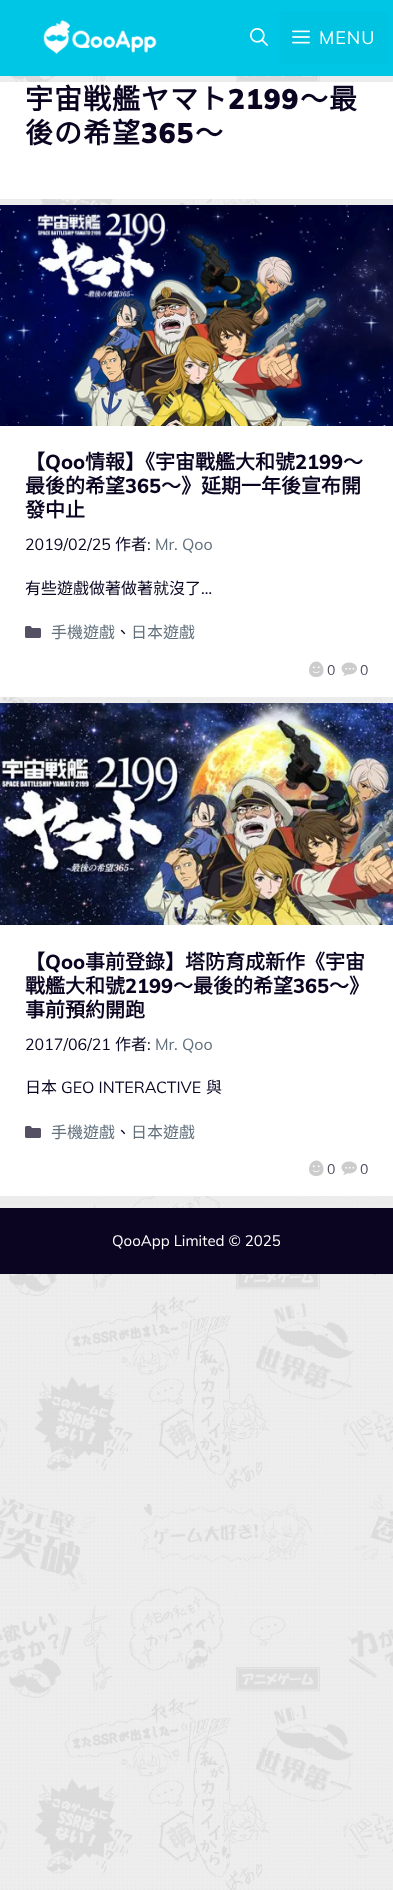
(async () => {
  const canvas = document.querySelector("canvas");
  canvas.width = 393;
  canvas.height = 1890;
  const ctx = canvas.getContext("2d");
  ctx.miterLimit = 4;
  ctx.fontKerning = "normal";
  async function loadImage(src) {
    const img = new Image();
    img.src = src;
    await img.decode();
    return img;
  }

  ctx.fillStyle = "#ffffff";
  ctx.fillRect(0, 0, 393, 1890);
  ctx.drawImage(await loadImage("img/1.png"), 0, 76, 393, 1814);
  ctx.fillStyle = "#00c6e6";
  ctx.fillRect(0, 0, 393, 76);
  ctx.drawImage(await loadImage("img/2.png"), 43, 20, 114, 34);
  ctx.drawImage(await loadImage("img/3.png"), 250, 28, 18, 18);
  ctx.fillStyle = "#00c2e1";
  ctx.fillRect(280, 12, 108, 52);
  ctx.drawImage(await loadImage("img/4.png"), 292, 30, 18, 14);
  ctx.fillStyle = "#ffffff";
  ctx.fillRect(0, 82, 393, 117);
  ctx.fillRect(0, 426, 393, 271);
  ctx.drawImage(await loadImage("img/5.png"), 0, 205, 393, 221);
  ctx.drawImage(await loadImage("img/6.png"), 309, 661, 15, 16);
  ctx.drawImage(await loadImage("img/7.png"), 341, 662, 16, 14);
  ctx.drawImage(await loadImage("img/8.png"), 25, 626, 16, 12);
  ctx.fillRect(0, 925, 393, 271);
  ctx.drawImage(await loadImage("img/9.png"), 0, 703, 393, 222);
  ctx.drawImage(await loadImage("img/6.png"), 309, 1160, 15, 16);
  ctx.drawImage(await loadImage("img/7.png"), 341, 1161, 16, 14);
  ctx.drawImage(await loadImage("img/8.png"), 25, 1126, 16, 12);
  ctx.fillStyle = "#0b0521";
  ctx.fillRect(0, 1208, 393, 66);
  ctx.letterSpacing = "1px";
  ctx.font = "18px Muli";
  ctx.fillStyle = "#ffffff";
  ctx.fillText("MENU", 319, 44);
  ctx.font = "bold 28px Noto Sans CJK TC";
  ctx.fillStyle = "#0b0521";
  ctx.fillText("宇宙戦艦ヤマト", 25, 109);
  ctx.font = "900 28px Muli";
  ctx.fillText("2199", 228, 109);
  ctx.font = "bold 28px Noto Sans CJK TC";
  ctx.fillText("～最", 300, 109);
  ctx.fillText("後の希望", 25, 143);
  ctx.font = "900 28px Muli";
  ctx.fillText("365", 141, 143);
  ctx.font = "bold 28px Noto Sans CJK TC";
  ctx.fillText("～", 195, 143);
  ctx.letterSpacing = "0px";
  ctx.font = "bold 20px Noto Sans CJK TC";
  ctx.fillText("【", 25, 469);
  ctx.font = "800 20px Muli";
  ctx.fillText("Qoo", 45, 469);
  ctx.font = "bold 20px Noto Sans CJK TC";
  ctx.fillText("情報】《宇宙戰艦大和號", 85, 469);
  ctx.font = "800 20px Muli";
  ctx.fillText("2199", 295, 469);
  ctx.font = "bold 20px Noto Sans CJK TC";
  ctx.fillText("～", 343, 469);
  ctx.fillText("最後的希望", 25, 493);
  ctx.font = "800 20px Muli";
  ctx.fillText("365", 125, 493);
  ctx.font = "bold 20px Noto Sans CJK TC";
  ctx.fillText("～》延期一年後宣布開", 161, 493);
  ctx.fillText("發中止", 25, 517);
  ctx.font = "16px Muli";
  ctx.fillText("2019/02/25", 25, 550);
  ctx.font = "16px Noto Sans CJK TC";
  ctx.fillText("作者", 115, 550);
  ctx.font = "16px Muli";
  ctx.fillText(":", 147, 550);
  ctx.fillStyle = "#62707c";
  ctx.fillText("Mr. Qoo", 155, 550);
  ctx.font = "14px Muli";
  ctx.fillStyle = "#4c4c5c";
  ctx.fillText("0", 327, 675);
  ctx.fillText("0", 360, 675);
  ctx.font = "16px Noto Sans CJK TC";
  ctx.fillStyle = "#0b0521";
  ctx.fillText("有些遊戲做著做著就沒了", 25, 594);
  ctx.font = "16px Muli";
  ctx.fillText("…", 201, 594);
  ctx.font = "16px Noto Sans CJK TC";
  ctx.fillStyle = "#62707c";
  ctx.fillText("手機遊戲", 51, 638);
  ctx.fillStyle = "#0b0521";
  ctx.fillText("、", 115, 638);
  ctx.fillStyle = "#62707c";
  ctx.fillText("日本遊戲", 131, 638);
  ctx.font = "bold 20px Noto Sans CJK TC";
  ctx.fillStyle = "#0b0521";
  ctx.fillText("【", 25, 969);
  ctx.font = "800 20px Muli";
  ctx.fillText("Qoo", 45, 969);
  ctx.font = "bold 20px Noto Sans CJK TC";
  ctx.fillText("事前登錄】塔防育成新作《宇宙", 85, 969);
  ctx.fillText("戰艦大和號", 25, 993);
  ctx.font = "800 20px Muli";
  ctx.fillText("2199", 125, 993);
  ctx.font = "bold 20px Noto Sans CJK TC";
  ctx.fillText("～最後的希望", 173, 993);
  ctx.font = "800 20px Muli";
  ctx.fillText("365", 293, 993);
  ctx.font = "bold 20px Noto Sans CJK TC";
  ctx.fillText("～》", 329, 993);
  ctx.fillText("事前預約開跑", 25, 1017);
  ctx.font = "16px Muli";
  ctx.fillText("2017/06/21", 25, 1050);
  ctx.font = "16px Noto Sans CJK TC";
  ctx.fillText("作者", 115, 1050);
  ctx.font = "16px Muli";
  ctx.fillText(":", 147, 1050);
  ctx.fillStyle = "#62707c";
  ctx.fillText("Mr. Qoo", 155, 1050);
  ctx.font = "14px Muli";
  ctx.fillStyle = "#4c4c5c";
  ctx.fillText("0", 327, 1174);
  ctx.fillText("0", 360, 1174);
  ctx.font = "16px Noto Sans CJK TC";
  ctx.fillStyle = "#0b0521";
  ctx.fillText("日本", 25, 1093);
  ctx.font = "16px Muli";
  ctx.fillText("GEO INTERACTIVE", 61, 1093);
  ctx.font = "16px Noto Sans CJK TC";
  ctx.fillText("與", 206, 1093);
  ctx.fillStyle = "#62707c";
  ctx.fillText("手機遊戲", 51, 1138);
  ctx.fillStyle = "#0b0521";
  ctx.fillText("、", 115, 1138);
  ctx.fillStyle = "#62707c";
  ctx.fillText("日本遊戲", 131, 1138);
  ctx.font = "15px Muli";
  ctx.fillStyle = "#ffffff";
  ctx.fillText("QooApp Limited © 2025", 112, 1246);
})();
